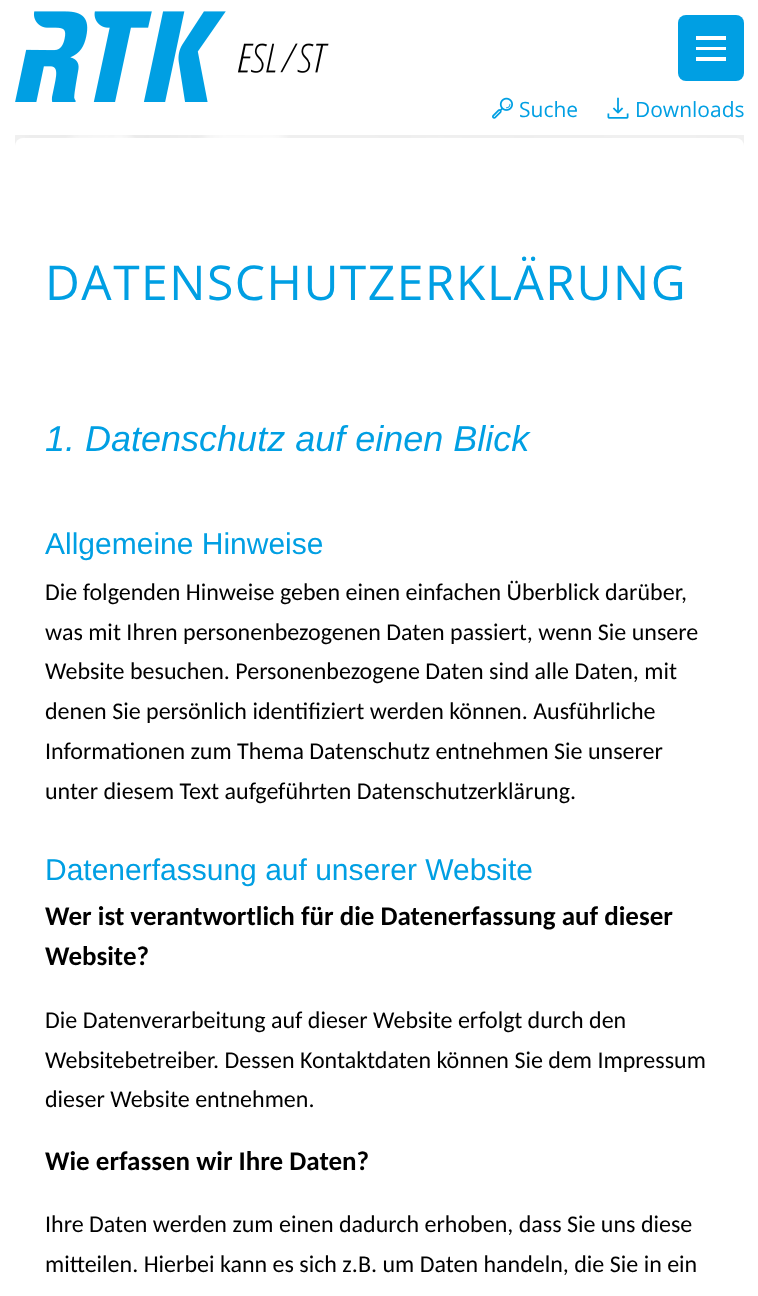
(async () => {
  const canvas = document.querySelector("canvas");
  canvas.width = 758;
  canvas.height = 1296;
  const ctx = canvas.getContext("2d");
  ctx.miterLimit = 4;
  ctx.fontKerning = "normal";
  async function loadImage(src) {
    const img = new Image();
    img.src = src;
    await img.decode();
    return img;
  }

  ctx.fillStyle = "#ffffff";
  ctx.fillRect(0, 0, 758, 1296);
  ctx.drawImage(await loadImage("img/1.png"), 15, 11, 314, 91);
  ctx.fillStyle = "#009fe3";
  ctx.beginPath();
  ctx.roundRect(678, 15, 66, 66, 8);
  ctx.fill();
  for (const [x, y, w, h, color] of [
    [696, 36, 30, 4, "#ffffff"],
    [696, 47, 30, 3, "#ffffff"],
    [696, 57, 30, 4, "#ffffff"],
  ]) {
    ctx.fillStyle = color;
    ctx.fillRect(x, y, w, h);
  }
  ctx.drawImage(await loadImage("img/2.png"), 492, 97, 21, 22);
  ctx.drawImage(await loadImage("img/3.png"), 607, 97, 22, 22);
  ctx.drawImage(await loadImage("img/4.png"), 15, 135, 729, 11);
  ctx.beginPath();
  ctx.roundRect(15, 138, 729, 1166, 8);
  ctx.fill();
  ctx.font = "21px Open Sans";
  ctx.fillStyle = "#009fe3";
  ctx.fillText("Suche", 519, 117);
  ctx.fillText("Downloads", 635, 117);
  ctx.letterSpacing = "1.5px";
  ctx.font = "48px Open Sans";
  ctx.fillText("DATENSCHUTZERKLÄRUNG", 45, 300);
  ctx.letterSpacing = "0px";
  ctx.font = "italic 36px Liberation Sans";
  ctx.fillText("1. Datenschutz auf einen Blick", 45, 451);
  ctx.font = "30px Liberation Sans";
  ctx.fillText("Allgemeine Hinweise", 45, 554);
  ctx.font = "24px Carlito";
  ctx.fillStyle = "#000000";
  for (const [text, x, y] of [
    ["Die folgenden Hinweise geben einen einfachen Überblick darüber,", 45, 600],
    ["was mit Ihren personenbezogenen Daten passiert, wenn Sie unsere", 45, 640],
    ["Website besuchen. Personenbezogene Daten sind alle Daten, mit", 45, 679],
    ["denen Sie persönlich identifiziert werden können. Ausführliche", 45, 719],
    ["Informationen zum Thema Datenschutz entnehmen Sie unserer", 45, 759],
    ["unter diesem Text aufgeführten Datenschutzerklärung.", 45, 799],
  ]) {
    ctx.fillText(text, x, y);
  }
  ctx.font = "30px Liberation Sans";
  ctx.fillStyle = "#009fe3";
  ctx.fillText("Datenerfassung auf unserer Website", 45, 880);
  ctx.font = "bold 27px Carlito";
  ctx.fillStyle = "#000000";
  ctx.fillText("Wer ist verantwortlich für die Datenerfassung auf dieser", 45, 925);
  ctx.fillText("Website?", 45, 965);
  ctx.font = "24px Carlito";
  for (const [text, x, y] of [
    ["Die Datenverarbeitung auf dieser Website erfolgt durch den", 45, 1028],
    ["Websitebetreiber. Dessen Kontaktdaten können Sie dem Impressum", 45, 1068],
    ["dieser Website entnehmen.", 45, 1107],
  ]) {
    ctx.fillText(text, x, y);
  }
  ctx.font = "bold 27px Carlito";
  ctx.fillText("Wie erfassen wir Ihre Daten?", 45, 1170);
  ctx.font = "24px Carlito";
  ctx.fillText("Ihre Daten werden zum einen dadurch erhoben, dass Sie uns diese", 45, 1232);
  ctx.fillText("mitteilen. Hierbei kann es sich z.B. um Daten handeln, die Sie in ein", 45, 1272);
})();
